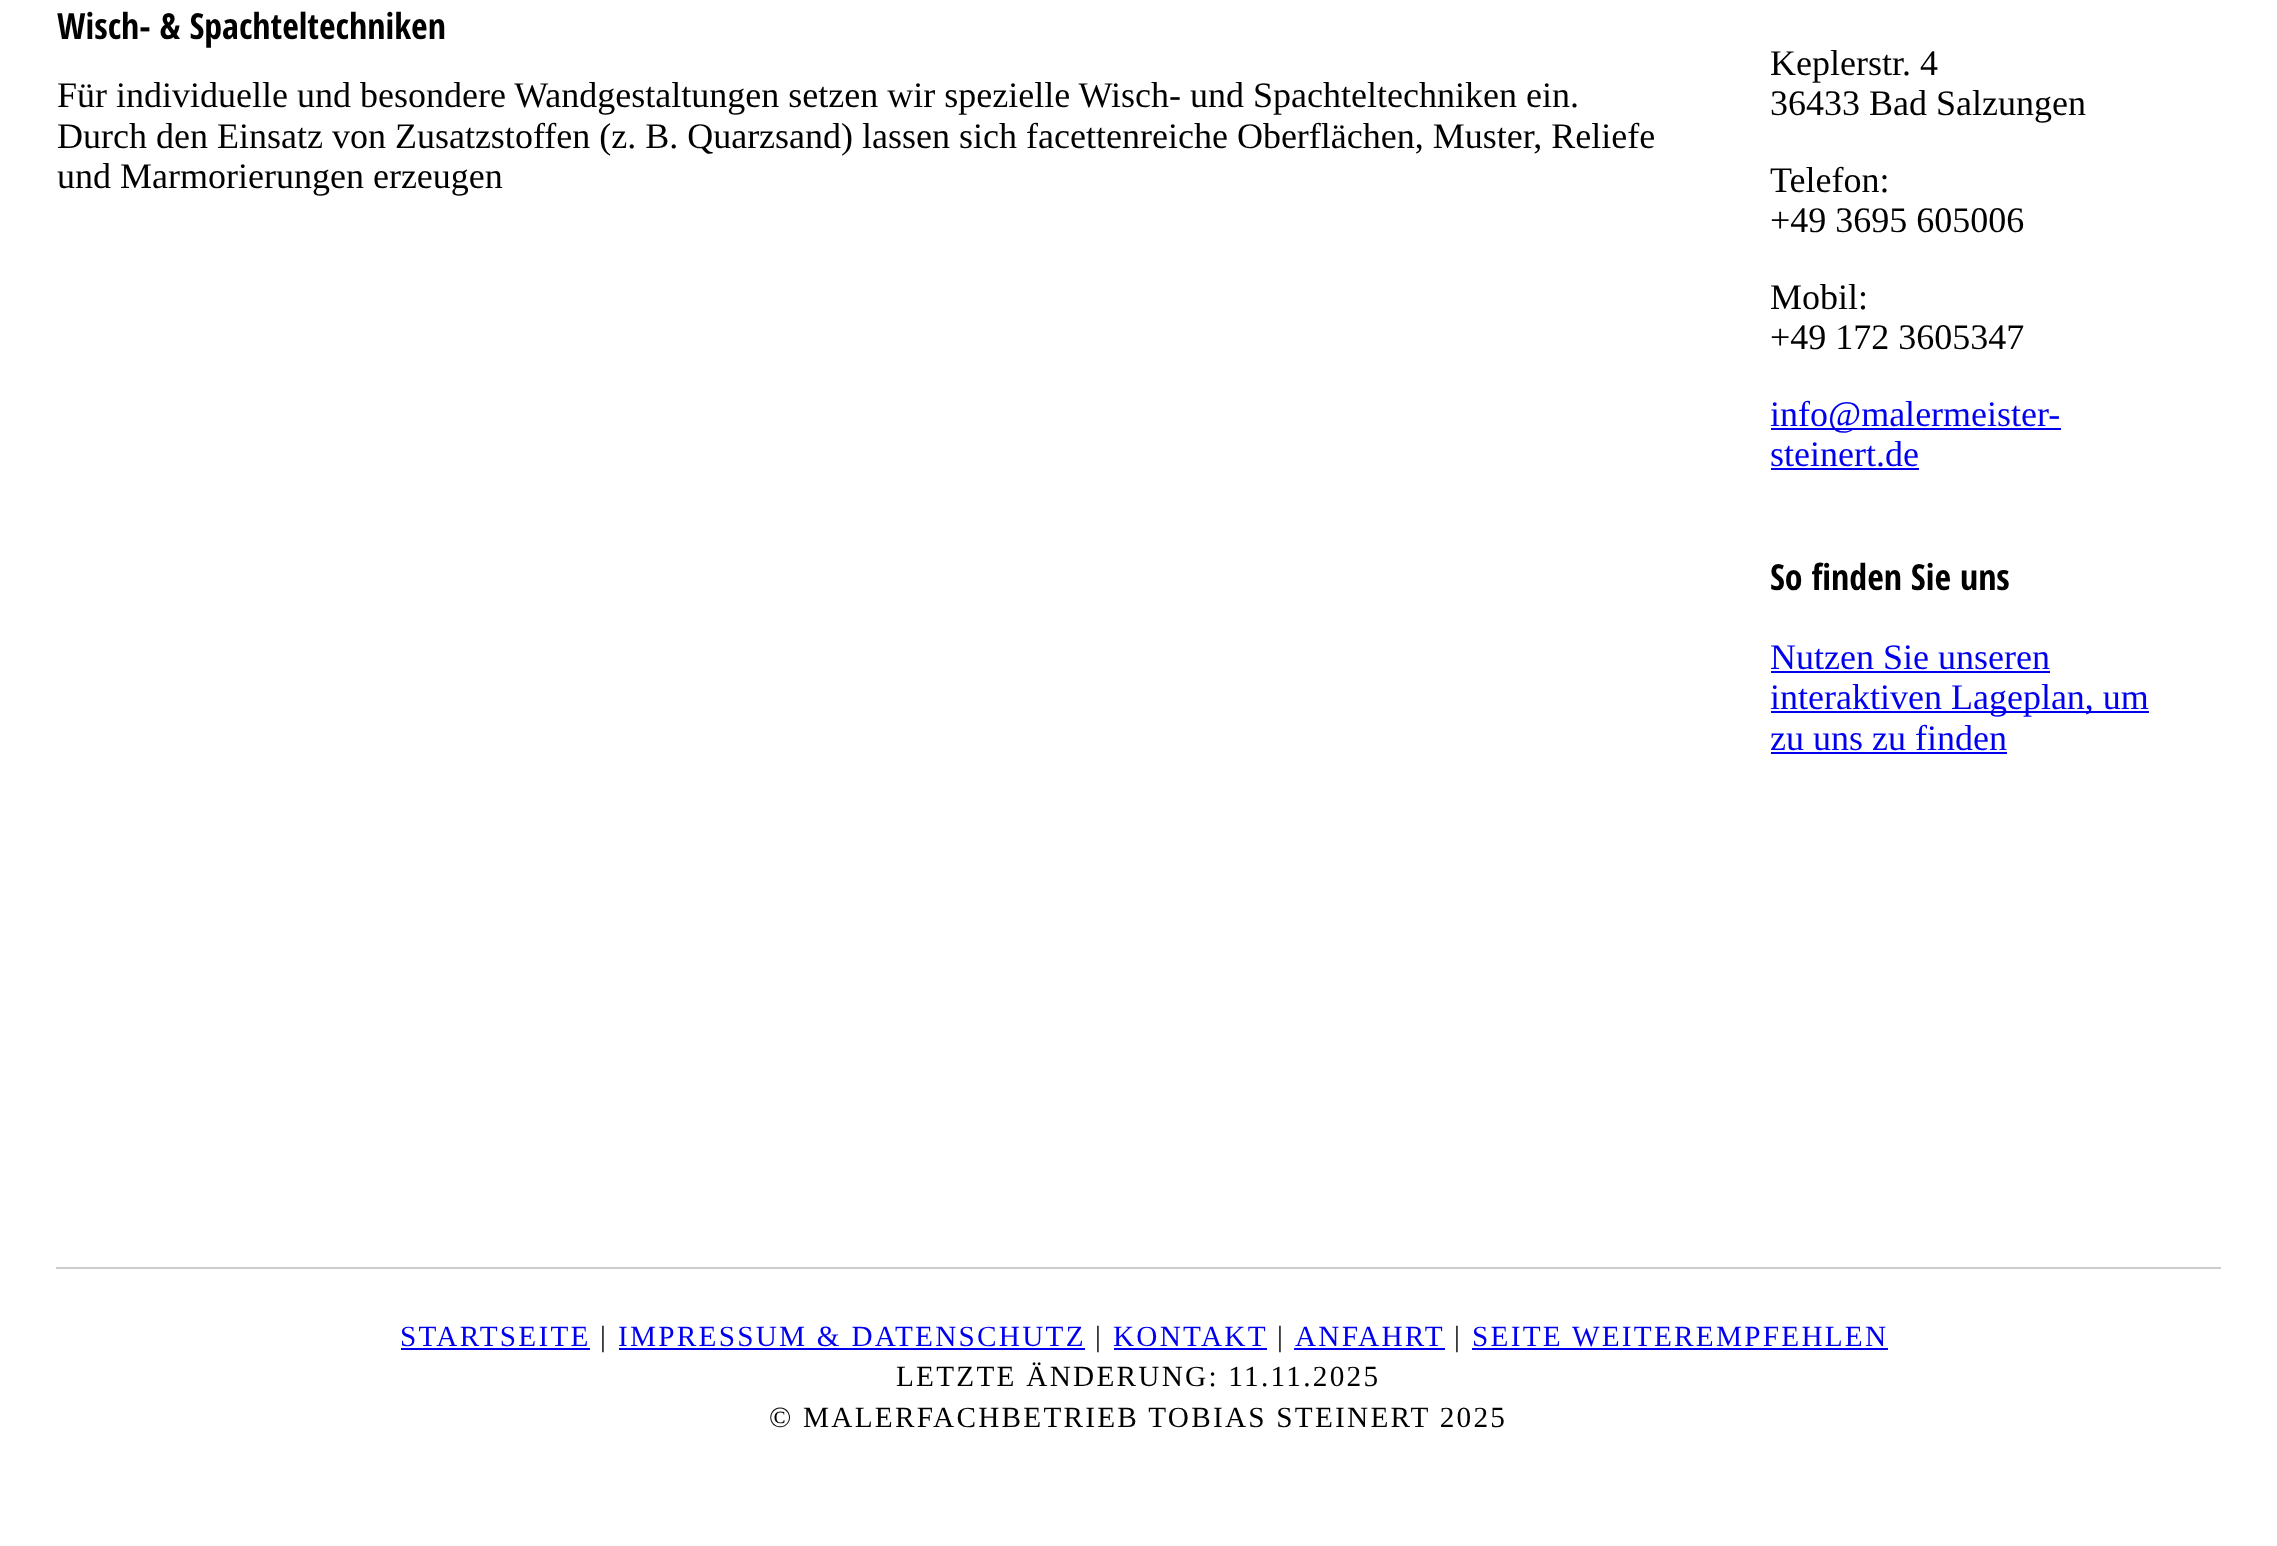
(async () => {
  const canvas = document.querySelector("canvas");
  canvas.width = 2277;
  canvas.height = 1546;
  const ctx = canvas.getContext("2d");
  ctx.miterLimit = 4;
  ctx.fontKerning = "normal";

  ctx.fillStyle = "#ffffff";
  ctx.fillRect(0, 0, 2277, 1546);
  for (const [x, y, w, h, color] of [
    [1771, 428, 290, 2, "#0000ee"],
    [1771, 468, 148, 2, "#0000ee"],
    [1771, 671, 279, 2, "#0000ee"],
    [1771, 711, 378, 2, "#0000ee"],
    [1771, 752, 236, 2, "#0000ee"],
    [56, 1267, 2165, 2, "#cccccc"],
    [401, 1348, 189, 2, "#0000ee"],
    [619, 1348, 466, 2, "#0000ee"],
    [1114, 1348, 153, 2, "#0000ee"],
    [1294, 1348, 151, 2, "#0000ee"],
    [1472, 1348, 416, 2, "#0000ee"],
  ]) {
    ctx.fillStyle = color;
    ctx.fillRect(x, y, w, h);
  }
  ctx.font = "bold 36px Open Sans Condensed";
  ctx.fillStyle = "#000000";
  ctx.fillText("Wisch- & Spachteltechniken", 57, 39);
  ctx.font = "36px Liberation Serif";
  for (const [text, x, y] of [
    ["Für individuelle und besondere Wandgestaltungen setzen wir spezielle Wisch- und Spachteltechniken ein.", 57, 107],
    ["Durch den Einsatz von Zusatzstoffen (z. B. Quarzsand) lassen sich facettenreiche Oberflächen, Muster, Reliefe", 57, 148],
    ["und Marmorierungen erzeugen", 57, 188],
    ["Keplerstr. 4", 1770, 75],
    ["36433 Bad Salzungen", 1770, 115],
    ["Telefon:", 1770, 192],
    ["+49 3695 605006", 1770, 232],
    ["Mobil:", 1770, 309],
    ["+49 172 3605347", 1770, 349],
  ]) {
    ctx.fillText(text, x, y);
  }
  ctx.fillStyle = "#0000ee";
  ctx.fillText("info@malermeister-", 1770, 426);
  ctx.fillText("steinert.de", 1770, 466);
  ctx.font = "bold 36px Open Sans Condensed";
  ctx.fillStyle = "#000000";
  ctx.fillText("So finden Sie uns", 1770, 590);
  ctx.font = "36px Liberation Serif";
  ctx.fillStyle = "#0000ee";
  for (const [text, x, y] of [
    ["Nutzen Sie unseren", 1770, 669],
    ["interaktiven Lageplan, um", 1770, 709],
    ["zu uns zu finden", 1770, 750],
  ]) {
    ctx.fillText(text, x, y);
  }
  ctx.letterSpacing = "2.25px";
  ctx.font = "29.25px Liberation Serif";
  ctx.fillText("STARTSEITE", 400, 1346);
  ctx.fillStyle = "#000000";
  ctx.fillText("|", 600, 1346);
  ctx.fillStyle = "#0000ee";
  ctx.fillText("IMPRESSUM & DATENSCHUTZ", 618, 1346);
  ctx.fillStyle = "#000000";
  ctx.fillText("|", 1095, 1346);
  ctx.fillStyle = "#0000ee";
  ctx.fillText("KONTAKT", 1113, 1346);
  ctx.fillStyle = "#000000";
  ctx.fillText("|", 1277, 1346);
  ctx.fillStyle = "#0000ee";
  ctx.fillText("ANFAHRT", 1295, 1346);
  ctx.fillStyle = "#000000";
  ctx.fillText("|", 1454, 1346);
  ctx.fillStyle = "#0000ee";
  ctx.fillText("SEITE WEITEREMPFEHLEN", 1472, 1346);
  ctx.fillStyle = "#000000";
  ctx.fillText("LETZTE ÄNDERUNG: 11.11.2025", 896, 1386);
  ctx.fillText("© MALERFACHBETRIEB TOBIAS STEINERT 2025", 769, 1427);
})();
